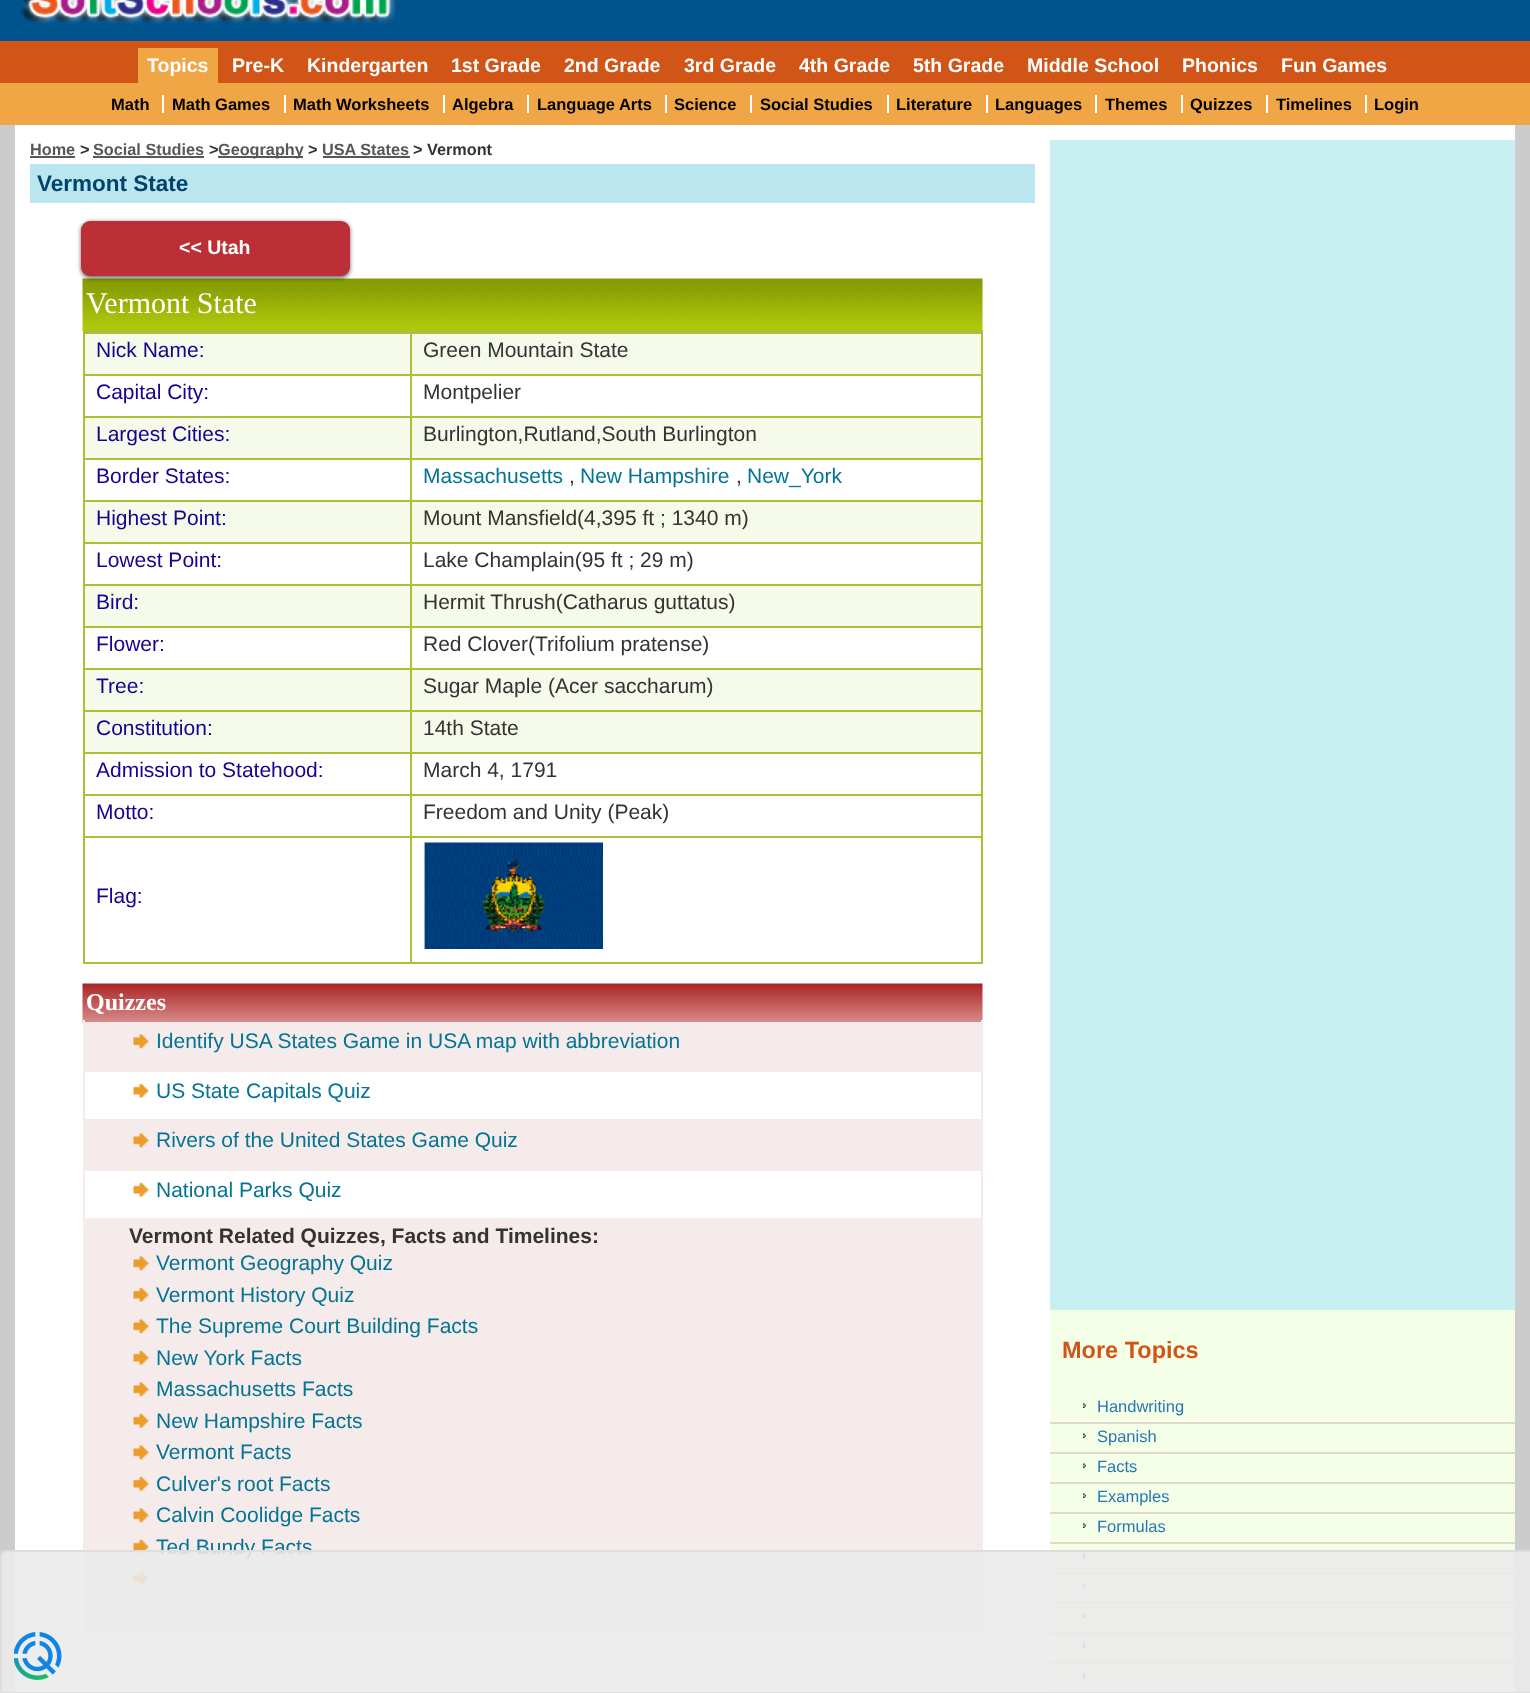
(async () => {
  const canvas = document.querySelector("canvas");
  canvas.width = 1530;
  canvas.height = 1693;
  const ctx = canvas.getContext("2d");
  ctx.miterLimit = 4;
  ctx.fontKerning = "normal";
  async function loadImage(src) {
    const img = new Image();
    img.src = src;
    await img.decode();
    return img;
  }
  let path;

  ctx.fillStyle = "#cccccc";
  ctx.fillRect(0, 0, 1530, 1693);
  ctx.fillStyle = "#00548e";
  ctx.fillRect(0, 0, 1530, 41);
  ctx.drawImage(await loadImage("img/1.png"), 20, 0, 376, 24);
  for (const [x, y, w, h, color] of [
    [0, 41, 1530, 42, "#d15517"],
    [138, 48, 80, 35, "#f0a644"],
    [0, 83, 1530, 42, "#f0a644"],
    [162, 95, 2, 18, "#ffffff"],
    [284, 95, 2, 18, "#ffffff"],
    [443, 95, 2, 18, "#ffffff"],
    [527, 95, 2, 18, "#ffffff"],
    [665, 95, 2, 18, "#ffffff"],
    [750, 95, 2, 18, "#ffffff"],
    [887, 95, 2, 18, "#ffffff"],
    [986, 95, 2, 18, "#ffffff"],
    [1095, 95, 2, 18, "#ffffff"],
    [1181, 95, 2, 18, "#ffffff"],
    [1266, 95, 2, 18, "#ffffff"],
    [1365, 95, 2, 18, "#ffffff"],
    [15, 125, 1035, 1567, "#ffffff"],
    [30, 156, 45, 2, "#575757"],
    [93, 156, 111, 2, "#575757"],
    [218, 156, 85, 2, "#575757"],
    [323, 156, 87, 2, "#575757"],
    [30, 164, 1005, 39, "#bae6ef"],
  ]) {
    ctx.fillStyle = color;
    ctx.fillRect(x, y, w, h);
  }
  ctx.drawImage(await loadImage("img/2.png"), 82, 278, 901, 53);
  ctx.fillStyle = "rgba(0, 0, 0, 0.6)";
  ctx.filter = "blur(2px)";
  ctx.beginPath();
  ctx.roundRect(81, 222, 269, 56, 9);
  ctx.fill();
  ctx.filter = "none";
  ctx.fillStyle = "#bc2f36";
  ctx.beginPath();
  ctx.roundRect(81, 221, 269, 55, 9);
  ctx.fill();
  for (const [x, y, w, h, color] of [
    [83, 330, 900, 4, "#adc035"],
    [85, 334, 896, 40, "#f5faea"],
    [83, 374, 900, 2, "#adc035"],
    [83, 416, 900, 2, "#adc035"],
    [83, 458, 900, 2, "#adc035"],
    [83, 500, 900, 2, "#adc035"],
    [83, 542, 900, 2, "#adc035"],
    [83, 584, 900, 2, "#adc035"],
    [83, 626, 900, 2, "#adc035"],
    [83, 668, 900, 2, "#adc035"],
    [83, 710, 900, 2, "#adc035"],
    [83, 752, 900, 2, "#adc035"],
    [83, 794, 900, 2, "#adc035"],
    [83, 836, 900, 2, "#adc035"],
    [981, 836, 2, 127, "#adc035"],
    [981, 794, 2, 43, "#adc035"],
    [981, 752, 2, 43, "#adc035"],
    [981, 710, 2, 43, "#adc035"],
    [981, 668, 2, 43, "#adc035"],
    [981, 626, 2, 43, "#adc035"],
    [981, 584, 2, 43, "#adc035"],
    [981, 542, 2, 43, "#adc035"],
    [981, 500, 2, 43, "#adc035"],
    [981, 458, 2, 43, "#adc035"],
    [981, 416, 2, 43, "#adc035"],
    [981, 332, 2, 85, "#adc035"],
    [83, 962, 900, 2, "#adc035"],
    [83, 836, 2, 127, "#adc035"],
    [83, 794, 2, 43, "#adc035"],
    [83, 752, 2, 43, "#adc035"],
    [83, 710, 2, 43, "#adc035"],
    [83, 668, 2, 43, "#adc035"],
    [83, 626, 2, 43, "#adc035"],
    [83, 584, 2, 43, "#adc035"],
    [83, 542, 2, 43, "#adc035"],
    [83, 500, 2, 43, "#adc035"],
    [83, 458, 2, 43, "#adc035"],
    [83, 416, 2, 43, "#adc035"],
    [83, 332, 2, 85, "#adc035"],
    [85, 418, 896, 40, "#f5faea"],
    [85, 502, 896, 40, "#f5faea"],
    [85, 586, 896, 40, "#f5faea"],
    [85, 670, 896, 40, "#f5faea"],
    [85, 712, 896, 40, "#f5faea"],
    [410, 332, 2, 631, "#adc035"],
  ]) {
    ctx.fillStyle = color;
    ctx.fillRect(x, y, w, h);
  }
  ctx.drawImage(await loadImage("img/3.png"), 424, 842, 179, 107);
  ctx.drawImage(await loadImage("img/4.png"), 82, 983, 901, 40);
  for (const [x, y, w, h, color] of [
    [85, 1022, 896, 48, "#f5ebeb"],
    [85, 1119, 898, 50, "#f5ebeb"],
    [981, 1020, 2, 101, "#f5ebeb"],
    [981, 1169, 2, 463, "#f5ebeb"],
    [83, 1631, 900, 2, "#f5ebeb"],
    [83, 1169, 2, 463, "#f5ebeb"],
    [83, 1169, 900, 2, "#f5ebeb"],
    [83, 1070, 2, 100, "#f5ebeb"],
    [83, 1070, 900, 2, "#f5ebeb"],
    [83, 1020, 2, 51, "#f5ebeb"],
  ]) {
    ctx.fillStyle = color;
    ctx.fillRect(x, y, w, h);
  }
  ctx.drawImage(await loadImage("img/5.png"), 133, 1034, 16, 15);
  ctx.drawImage(await loadImage("img/6.png"), 133, 1083, 16, 16);
  ctx.drawImage(await loadImage("img/5.png"), 133, 1133, 16, 15);
  ctx.drawImage(await loadImage("img/6.png"), 133, 1182, 16, 16);
  ctx.fillRect(85, 1218, 896, 413);
  ctx.drawImage(await loadImage("img/5.png"), 133, 1256, 16, 15);
  ctx.drawImage(await loadImage("img/7.png"), 133, 1287, 16, 16);
  ctx.drawImage(await loadImage("img/5.png"), 133, 1319, 16, 15);
  ctx.drawImage(await loadImage("img/7.png"), 133, 1350, 16, 16);
  ctx.drawImage(await loadImage("img/5.png"), 133, 1382, 16, 15);
  ctx.drawImage(await loadImage("img/7.png"), 133, 1413, 16, 16);
  ctx.drawImage(await loadImage("img/5.png"), 133, 1445, 16, 15);
  ctx.drawImage(await loadImage("img/7.png"), 133, 1476, 16, 16);
  ctx.drawImage(await loadImage("img/5.png"), 133, 1508, 16, 15);
  ctx.drawImage(await loadImage("img/7.png"), 133, 1539, 16, 16);
  ctx.drawImage(await loadImage("img/5.png"), 133, 1571, 16, 15);
  for (const [x, y, w, h, color] of [
    [1050, 125, 465, 15, "#ffffff"],
    [1050, 140, 465, 1170, "#c8eff2"],
    [1050, 1310, 465, 382, "#f5fee7"],
    [1050, 1422, 465, 2, "#dedaca"],
  ]) {
    ctx.fillStyle = color;
    ctx.fillRect(x, y, w, h);
  }
  ctx.drawImage(await loadImage("img/8.png"), 1083, 1403, 3, 5);
  ctx.fillRect(1050, 1452, 465, 2);
  ctx.drawImage(await loadImage("img/8.png"), 1083, 1433, 3, 5);
  ctx.fillRect(1050, 1482, 465, 2);
  ctx.drawImage(await loadImage("img/8.png"), 1083, 1463, 3, 5);
  ctx.fillRect(1050, 1512, 465, 2);
  ctx.drawImage(await loadImage("img/8.png"), 1083, 1493, 3, 5);
  ctx.fillRect(1050, 1542, 465, 2);
  ctx.drawImage(await loadImage("img/8.png"), 1083, 1523, 3, 5);
  ctx.fillRect(1050, 1572, 465, 2);
  ctx.drawImage(await loadImage("img/8.png"), 1083, 1553, 3, 5);
  ctx.fillRect(1050, 1602, 465, 2);
  ctx.drawImage(await loadImage("img/8.png"), 1083, 1583, 3, 5);
  ctx.fillRect(1050, 1632, 465, 2);
  ctx.drawImage(await loadImage("img/8.png"), 1083, 1613, 3, 5);
  ctx.fillRect(1050, 1662, 465, 2);
  ctx.drawImage(await loadImage("img/8.png"), 1083, 1643, 3, 5);
  ctx.drawImage(await loadImage("img/8.png"), 1083, 1673, 3, 5);
  ctx.font = "bold 19.5px Liberation Sans";
  ctx.fillStyle = "#ffffff";
  for (const [text, x, y] of [
    ["Topics", 147, 72],
    ["Pre-K", 232, 72],
    ["Kindergarten", 307, 72],
    ["1st Grade", 451, 72],
    ["2nd Grade", 564, 72],
    ["3rd Grade", 684, 72],
    ["4th Grade", 799, 72],
    ["5th Grade", 913, 72],
    ["Middle School", 1027, 72],
    ["Phonics", 1182, 72],
    ["Fun Games", 1281, 72],
  ]) {
    ctx.fillText(text, x, y);
  }
  ctx.font = "bold 16.5px Liberation Sans";
  ctx.fillStyle = "#000000";
  for (const [text, x, y] of [
    ["Math", 111, 110],
    ["Math Games", 172, 110],
    ["Math Worksheets", 293, 110],
    ["Algebra", 452, 110],
    ["Language Arts", 537, 110],
    ["Science", 674, 110],
    ["Social Studies", 760, 110],
    ["Literature", 896, 110],
    ["Languages", 995, 110],
    ["Themes", 1105, 110],
    ["Quizzes", 1190, 110],
    ["Timelines", 1276, 110],
    ["Login", 1374, 110],
  ]) {
    ctx.fillText(text, x, y);
  }
  ctx.font = "bold 16.25px Liberation Sans";
  ctx.fillStyle = "#575757";
  ctx.fillText("Home", 30, 155);
  ctx.fillStyle = "#333333";
  ctx.fillText(">", 80, 155);
  ctx.fillStyle = "#575757";
  ctx.fillText("Social Studies", 93, 155);
  ctx.fillStyle = "#333333";
  ctx.fillText(">", 209, 155);
  ctx.fillStyle = "#575757";
  ctx.fillText("Geography", 218, 155);
  ctx.fillStyle = "#333333";
  ctx.fillText(">", 308, 155);
  ctx.fillStyle = "#575757";
  ctx.fillText("USA States", 322, 155);
  ctx.fillStyle = "#333333";
  ctx.fillText("> Vermont", 413, 155);
  ctx.font = "bold 22.5px Liberation Sans";
  ctx.fillStyle = "#01436d";
  ctx.fillText("Vermont State", 37, 191);
  ctx.font = "bold 19.5px Liberation Sans";
  ctx.fillStyle = "#ffffff";
  ctx.fillText("<< Utah", 179, 254);
  ctx.font = "30px Liberation Serif";
  ctx.fillText("Vermont State", 86, 313);
  ctx.font = "21px Liberation Sans";
  ctx.fillStyle = "#16038f";
  ctx.fillText("Nick Name:", 96, 357);
  ctx.fillStyle = "#333333";
  ctx.fillText("Green Mountain State", 423, 357);
  ctx.fillStyle = "#16038f";
  ctx.fillText("Capital City:", 96, 399);
  ctx.fillStyle = "#333333";
  ctx.fillText("Montpelier", 423, 399);
  ctx.fillStyle = "#16038f";
  ctx.fillText("Largest Cities:", 96, 441);
  ctx.fillStyle = "#333333";
  ctx.fillText("Burlington,Rutland,South Burlington", 423, 441);
  ctx.fillStyle = "#16038f";
  ctx.fillText("Border States:", 96, 483);
  ctx.fillStyle = "#037494";
  ctx.fillText("Massachusetts", 423, 483);
  ctx.fillStyle = "#333333";
  ctx.fillText(",", 569, 483);
  ctx.fillStyle = "#037494";
  ctx.fillText("New Hampshire", 580, 483);
  ctx.fillStyle = "#333333";
  ctx.fillText(",", 736, 483);
  ctx.fillStyle = "#037494";
  ctx.fillText("New_York", 747, 483);
  ctx.fillStyle = "#16038f";
  ctx.fillText("Highest Point:", 96, 525);
  ctx.fillStyle = "#333333";
  ctx.fillText("Mount Mansfield(4,395 ft ; 1340 m)", 423, 525);
  ctx.fillStyle = "#16038f";
  ctx.fillText("Lowest Point:", 96, 567);
  ctx.fillStyle = "#333333";
  ctx.fillText("Lake Champlain(95 ft ; 29 m)", 423, 567);
  ctx.fillStyle = "#16038f";
  ctx.fillText("Bird:", 96, 609);
  ctx.fillStyle = "#333333";
  ctx.fillText("Hermit Thrush(Catharus guttatus)", 423, 609);
  ctx.fillStyle = "#16038f";
  ctx.fillText("Flower:", 96, 651);
  ctx.fillStyle = "#333333";
  ctx.fillText("Red Clover(Trifolium pratense)", 423, 651);
  ctx.fillStyle = "#16038f";
  ctx.fillText("Tree:", 96, 693);
  ctx.fillStyle = "#333333";
  ctx.fillText("Sugar Maple (Acer saccharum)", 423, 693);
  ctx.fillStyle = "#16038f";
  ctx.fillText("Constitution:", 96, 735);
  ctx.fillStyle = "#333333";
  ctx.fillText("14th State", 423, 735);
  ctx.fillStyle = "#16038f";
  ctx.fillText("Admission to Statehood:", 96, 777);
  ctx.fillStyle = "#333333";
  ctx.fillText("March 4, 1791", 423, 777);
  ctx.fillStyle = "#16038f";
  ctx.fillText("Motto:", 96, 819);
  ctx.fillStyle = "#333333";
  ctx.fillText("Freedom and Unity (Peak)", 423, 819);
  ctx.fillStyle = "#16038f";
  ctx.fillText("Flag:", 96, 903);
  ctx.font = "bold 24px Liberation Serif";
  ctx.fillStyle = "#ffffff";
  ctx.fillText("Quizzes", 86, 1010);
  ctx.font = "21px Liberation Sans";
  ctx.fillStyle = "#037494";
  for (const [text, x, y] of [
    ["Identify USA States Game in USA map with abbreviation", 156, 1048],
    ["US State Capitals Quiz", 156, 1098],
    ["Rivers of the United States Game Quiz", 156, 1147],
    ["National Parks Quiz", 156, 1197],
  ]) {
    ctx.fillText(text, x, y);
  }
  ctx.font = "bold 21px Liberation Sans";
  ctx.fillStyle = "#333333";
  ctx.fillText("Vermont Related Quizzes, Facts and Timelines:", 129, 1243);
  ctx.font = "21px Liberation Sans";
  ctx.fillStyle = "#037494";
  for (const [text, x, y] of [
    ["Vermont Geography Quiz", 156, 1270],
    ["Vermont History Quiz", 156, 1302],
    ["The Supreme Court Building Facts", 156, 1333],
    ["New York Facts", 156, 1365],
    ["Massachusetts Facts", 156, 1396],
    ["New Hampshire Facts", 156, 1428],
    ["Vermont Facts", 156, 1459],
    ["Culver's root Facts", 156, 1491],
    ["Calvin Coolidge Facts", 156, 1522],
    ["Ted Bundy Facts", 156, 1554],
  ]) {
    ctx.fillText(text, x, y);
  }
  ctx.font = "bold 23.5px Liberation Sans";
  ctx.fillStyle = "#d15517";
  ctx.fillText("More Topics", 1062, 1358);
  ctx.font = "16.5px Liberation Sans";
  ctx.fillStyle = "#2677b3";
  for (const [text, x, y] of [
    ["Handwriting", 1097, 1412],
    ["Spanish", 1097, 1442],
    ["Facts", 1097, 1472],
    ["Examples", 1097, 1502],
    ["Formulas", 1097, 1532],
  ]) {
    ctx.fillText(text, x, y);
  }
  ctx.fillStyle = "rgba(235, 235, 235, 0.89)";
  path = new Path2D("M6 1551H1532V1693H1V1556C1 1553 3 1551 6 1551Z");
  ctx.fill(path);
  ctx.strokeStyle = "#dddddd";
  ctx.lineWidth = 2;
  ctx.stroke(path);
  ctx.drawImage(await loadImage("img/9.png"), 14, 1632, 48, 48);
})();
